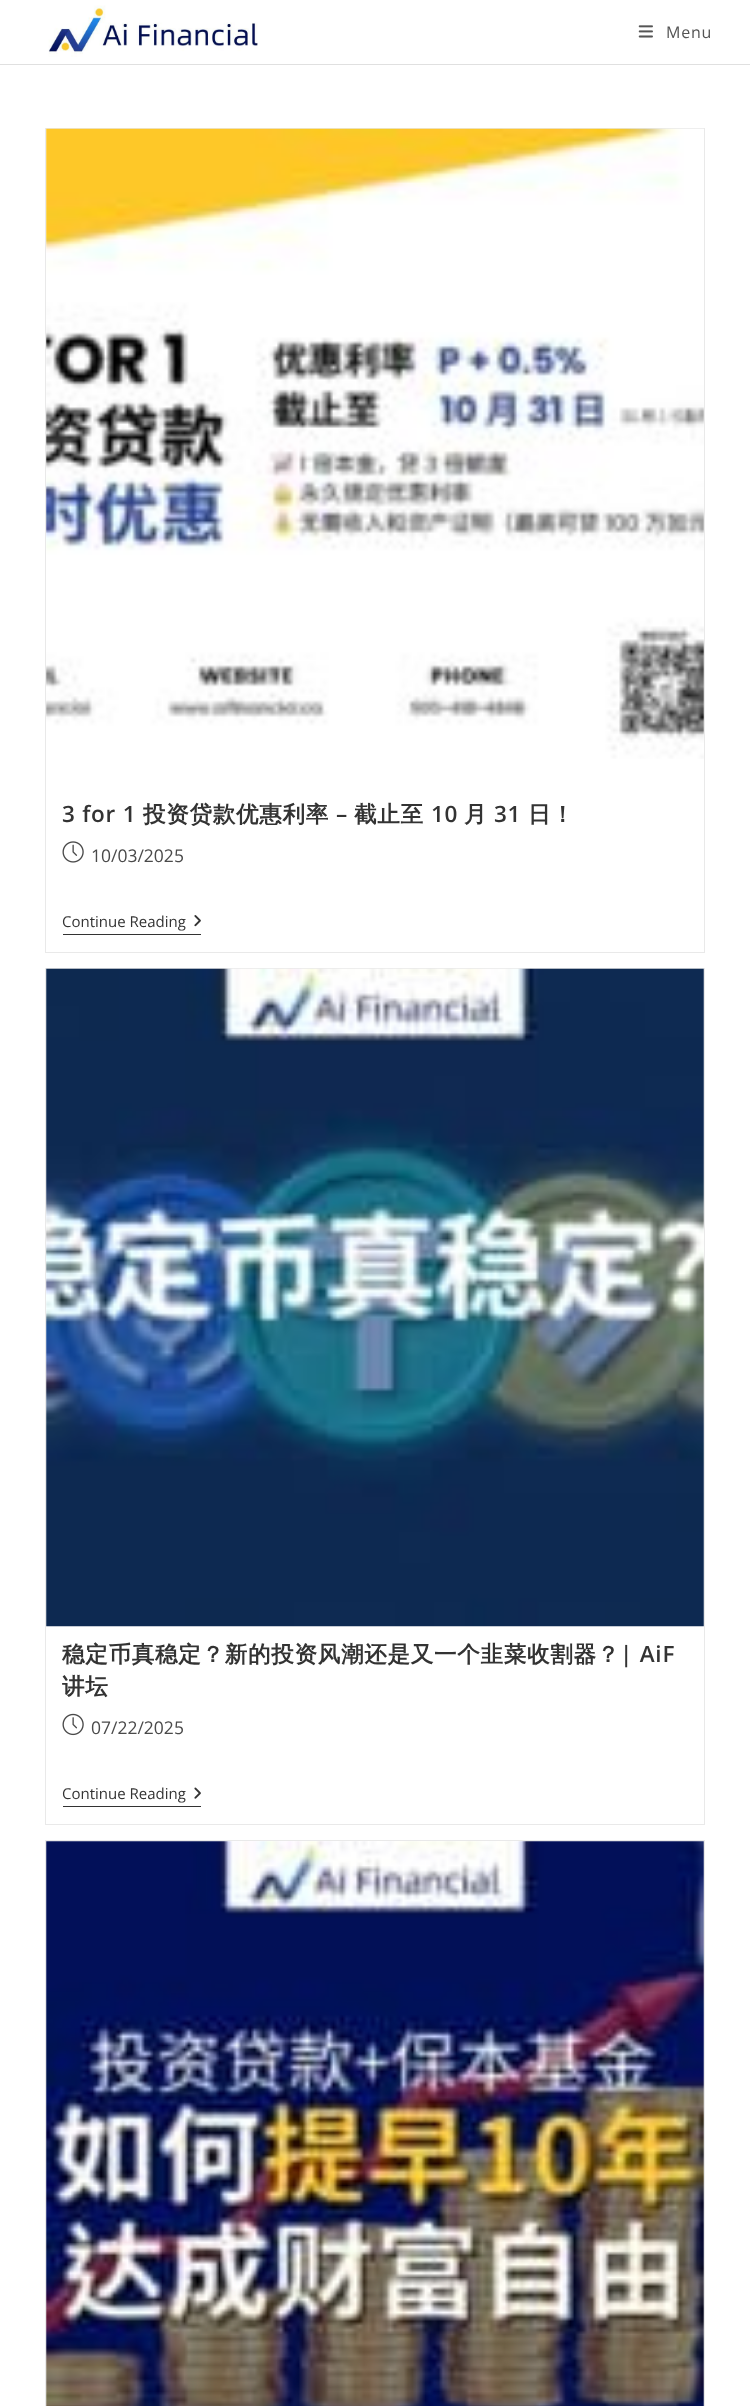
(async () => {
  const canvas = document.querySelector("canvas");
  canvas.width = 750;
  canvas.height = 2406;
  const ctx = canvas.getContext("2d");
  ctx.miterLimit = 4;
  ctx.fontKerning = "normal";
  async function loadImage(src) {
    const img = new Image();
    img.src = src;
    await img.decode();
    return img;
  }

  ctx.fillStyle = "#ffffff";
  ctx.fillRect(0, 0, 750, 2406);
  ctx.fillStyle = "#e0e0e0";
  ctx.fillRect(0, 64, 750, 1);
  ctx.drawImage(await loadImage("img/1.png"), 48, 5, 210, 52);
  ctx.drawImage(await loadImage("img/2.png"), 638, 25, 15, 13);
  ctx.strokeStyle = "#e9e9e9";
  ctx.strokeRect(45.5, 128.5, 659, 824);
  ctx.drawImage(await loadImage("img/3.png"), 46, 128, 658, 631);
  ctx.drawImage(await loadImage("img/4.png"), 62, 841, 22, 22);
  ctx.fillStyle = "#333333";
  ctx.fillRect(63, 934, 138, 1);
  ctx.drawImage(await loadImage("img/5.png"), 194, 915, 7, 12);
  ctx.strokeRect(45.5, 968.5, 659, 856);
  ctx.drawImage(await loadImage("img/6.png"), 46, 968, 658, 659);
  ctx.drawImage(await loadImage("img/7.png"), 62, 1713, 22, 23);
  ctx.fillRect(63, 1806, 138, 1);
  ctx.drawImage(await loadImage("img/8.png"), 194, 1787, 7, 12);
  ctx.strokeRect(45.5, 1840.5, 659, 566);
  ctx.drawImage(await loadImage("img/9.png"), 46, 1841, 658, 565);
  ctx.letterSpacing = "0.75px";
  ctx.font = "16px Open Sans";
  ctx.fillStyle = "#555555";
  ctx.fillText("Menu", 666, 38);
  ctx.font = "600 22.5px Open Sans";
  ctx.fillStyle = "#333333";
  ctx.fillText("3 for 1", 62, 822);
  ctx.font = "bold 22.5px WenQuanYi Zen Hei";
  ctx.fillText("投资贷款优惠利率", 143, 822);
  ctx.font = "600 22.5px Open Sans";
  ctx.fillText("–", 336, 822);
  ctx.font = "bold 22.5px WenQuanYi Zen Hei";
  ctx.fillText("截止至", 354, 822);
  ctx.font = "600 22.5px Open Sans";
  ctx.fillText("10", 431, 822);
  ctx.font = "bold 22.5px WenQuanYi Zen Hei";
  ctx.fillText("月", 464, 822);
  ctx.font = "600 22.5px Open Sans";
  ctx.fillText("31", 494, 822);
  ctx.font = "bold 22.5px WenQuanYi Zen Hei";
  ctx.fillText("日！", 528, 822);
  ctx.letterSpacing = "0px";
  ctx.font = "17.5px Open Sans";
  ctx.fillStyle = "#4a4a4a";
  ctx.fillText("10/03/2025", 91, 862);
  ctx.font = "15px Open Sans";
  ctx.fillStyle = "#333333";
  ctx.fillText("Continue Reading", 62, 927);
  ctx.letterSpacing = "0.75px";
  ctx.font = "bold 22.5px WenQuanYi Zen Hei";
  ctx.fillText("稳定币真稳定？新的投资风潮还是又一个韭菜收割器？", 62, 1662);
  ctx.font = "600 22.5px Open Sans";
  ctx.fillText("| AiF", 620, 1662);
  ctx.font = "bold 22.5px WenQuanYi Zen Hei";
  ctx.fillText("讲坛", 62, 1694);
  ctx.letterSpacing = "0px";
  ctx.font = "17.5px Open Sans";
  ctx.fillStyle = "#4a4a4a";
  ctx.fillText("07/22/2025", 91, 1734);
  ctx.font = "15px Open Sans";
  ctx.fillStyle = "#333333";
  ctx.fillText("Continue Reading", 62, 1799);
})();
